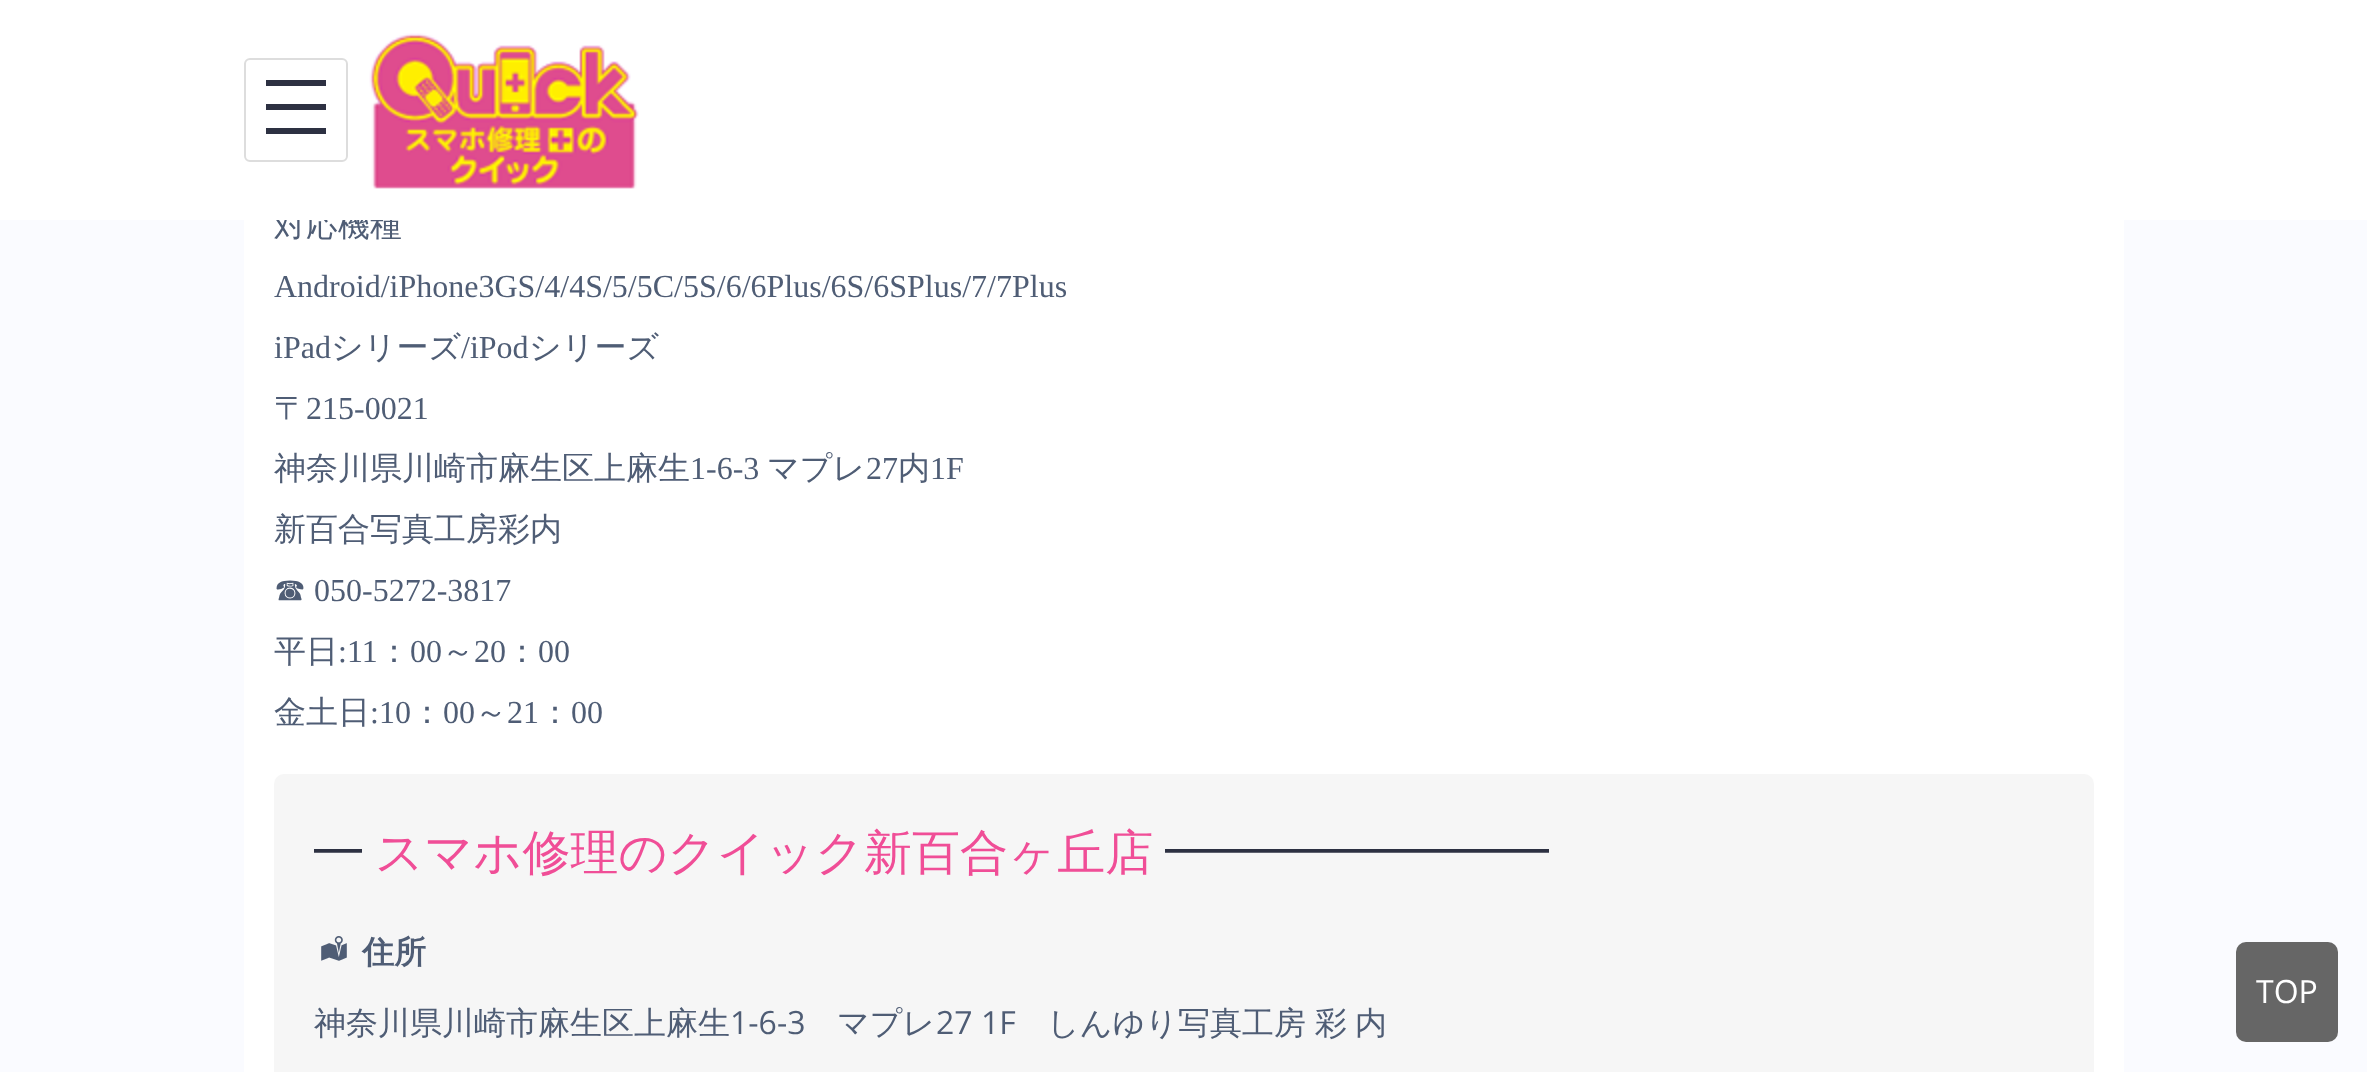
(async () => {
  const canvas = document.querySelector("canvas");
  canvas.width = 2367;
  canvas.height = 1072;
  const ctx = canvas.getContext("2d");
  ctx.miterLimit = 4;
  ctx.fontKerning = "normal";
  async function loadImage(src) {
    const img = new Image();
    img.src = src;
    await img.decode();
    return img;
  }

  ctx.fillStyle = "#fafbff";
  ctx.fillRect(0, 0, 2367, 1072);
  ctx.fillStyle = "#ffffff";
  ctx.fillRect(244, 220, 1880, 852);
  ctx.fillStyle = "#f6f6f6";
  ctx.beginPath();
  ctx.roundRect(274, 774, 1820, 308, 10);
  ctx.fill();
  ctx.drawImage(await loadImage("img/2.png"), 321, 936, 26, 25);
  ctx.fillStyle = "#666666";
  ctx.beginPath();
  ctx.roundRect(2236, 942, 102, 100, 10);
  ctx.fill();
  ctx.font = "500 32px WenQuanYi Zen Hei";
  ctx.fillStyle = "#4f5d75";
  ctx.fillText("対応機種", 274, 236);
  ctx.fillStyle = "#ffffff";
  ctx.fillRect(0, 0, 2367, 220);
  ctx.beginPath();
  ctx.roundRect(245, 59, 102, 102, 5);
  ctx.strokeStyle = "#dddddd";
  ctx.lineWidth = 2;
  ctx.stroke();
  for (const [x, y, w, h, color] of [
    [266, 128, 60, 6, "#2d3142"],
    [266, 104, 60, 6, "#2d3142"],
    [266, 80, 60, 6, "#2d3142"],
  ]) {
    ctx.fillStyle = color;
    ctx.fillRect(x, y, w, h);
  }
  ctx.drawImage(await loadImage("img/1.png"), 369, 33, 270, 156);
  ctx.font = "32px Liberation Serif";
  ctx.fillStyle = "#4f5d75";
  ctx.fillText("Android/iPhone3GS/4/4S/5/5C/5S/6/6Plus/6S/6SPlus/7/7Plus", 274, 297);
  ctx.fillText("iPad", 274, 358);
  ctx.font = "500 32px WenQuanYi Zen Hei";
  ctx.fillText("シリーズ", 331, 358);
  ctx.font = "32px Liberation Serif";
  ctx.fillText("/iPod", 461, 358);
  ctx.font = "500 32px WenQuanYi Zen Hei";
  ctx.fillText("シリーズ", 529, 358);
  ctx.fillText("〒", 274, 419);
  ctx.font = "32px Liberation Serif";
  ctx.fillText("215-0021", 306, 419);
  ctx.font = "500 32px WenQuanYi Zen Hei";
  ctx.fillText("神奈川県川崎市麻生区上麻生", 274, 479);
  ctx.font = "32px Liberation Serif";
  ctx.fillText("1-6-3", 690, 479);
  ctx.font = "500 32px WenQuanYi Zen Hei";
  ctx.fillText("マプレ", 767, 479);
  ctx.font = "32px Liberation Serif";
  ctx.fillText("27", 866, 479);
  ctx.font = "500 32px WenQuanYi Zen Hei";
  ctx.fillText("内", 898, 479);
  ctx.font = "32px Liberation Serif";
  ctx.fillText("1F", 930, 479);
  ctx.font = "500 32px WenQuanYi Zen Hei";
  ctx.fillText("新百合写真工房彩内", 274, 540);
  ctx.fillText("☎︎", 274, 601);
  ctx.font = "32px Liberation Serif";
  ctx.fillText("050-5272-3817", 314, 601);
  ctx.font = "500 32px WenQuanYi Zen Hei";
  ctx.fillText("平日", 274, 662);
  ctx.font = "32px Liberation Serif";
  ctx.fillText(":11", 338, 662);
  ctx.font = "500 32px WenQuanYi Zen Hei";
  ctx.fillText("：", 378, 662);
  ctx.font = "32px Liberation Serif";
  ctx.fillText("00", 410, 662);
  ctx.font = "500 32px WenQuanYi Zen Hei";
  ctx.fillText("～", 442, 662);
  ctx.font = "32px Liberation Serif";
  ctx.fillText("20", 474, 662);
  ctx.font = "500 32px WenQuanYi Zen Hei";
  ctx.fillText("：", 506, 662);
  ctx.font = "32px Liberation Serif";
  ctx.fillText("00", 538, 662);
  ctx.font = "500 32px WenQuanYi Zen Hei";
  ctx.fillText("金土日", 274, 723);
  ctx.font = "32px Liberation Serif";
  ctx.fillText(":10", 370, 723);
  ctx.font = "500 32px WenQuanYi Zen Hei";
  ctx.fillText("：", 411, 723);
  ctx.font = "32px Liberation Serif";
  ctx.fillText("00", 443, 723);
  ctx.font = "500 32px WenQuanYi Zen Hei";
  ctx.fillText("～", 475, 723);
  ctx.font = "32px Liberation Serif";
  ctx.fillText("21", 507, 723);
  ctx.font = "500 32px WenQuanYi Zen Hei";
  ctx.fillText("：", 539, 723);
  ctx.font = "32px Liberation Serif";
  ctx.fillText("00", 571, 723);
  ctx.font = "500 48px WenQuanYi Zen Hei";
  ctx.fillStyle = "#2d3142";
  ctx.fillText("━", 314, 869);
  ctx.fillStyle = "#f04e97";
  ctx.fillText("スマホ修理のクイック新百合ヶ丘店", 375, 869);
  ctx.fillStyle = "#2d3142";
  ctx.fillText("━━━━━━━━", 1165, 869);
  ctx.font = "bold 32px WenQuanYi Zen Hei";
  ctx.fillStyle = "#4f5d75";
  ctx.fillText("住所", 362, 963);
  ctx.font = "500 32px WenQuanYi Zen Hei";
  ctx.fillText("神奈川県川崎市麻生区上麻生", 314, 1034);
  ctx.font = "32px Open Sans";
  ctx.fillText("1-6-3", 730, 1034);
  ctx.font = "500 32px WenQuanYi Zen Hei";
  ctx.fillText("マプレ", 837, 1034);
  ctx.font = "32px Open Sans";
  ctx.fillText("27 1F", 936, 1034);
  ctx.font = "500 32px WenQuanYi Zen Hei";
  for (const [text, x, y] of [
    ["しんゆり写真工房", 1047, 1034],
    ["彩", 1315, 1034],
    ["内", 1355, 1034],
  ]) {
    ctx.fillText(text, x, y);
  }
  ctx.font = "32px Open Sans";
  ctx.fillStyle = "#ffffff";
  ctx.fillText("TOP", 2256, 1003);
})();
